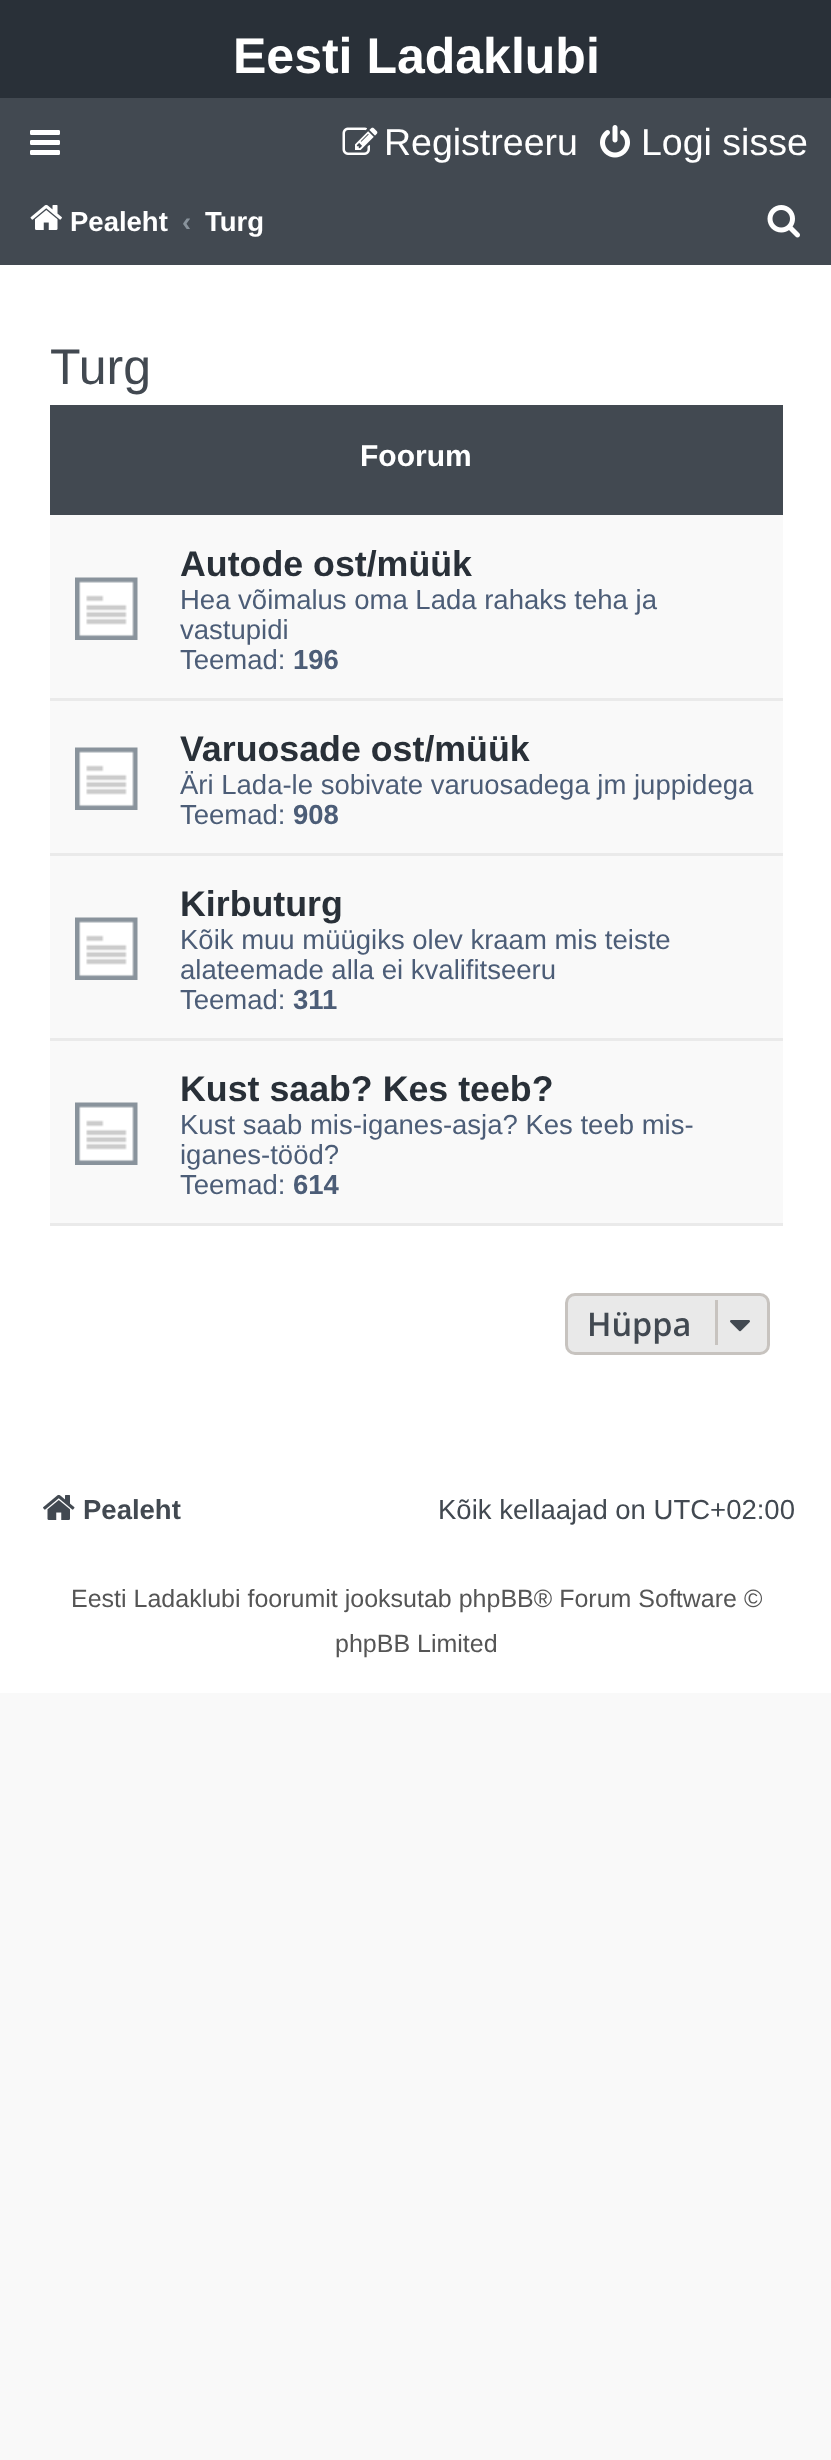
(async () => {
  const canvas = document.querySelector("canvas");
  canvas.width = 831;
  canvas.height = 2460;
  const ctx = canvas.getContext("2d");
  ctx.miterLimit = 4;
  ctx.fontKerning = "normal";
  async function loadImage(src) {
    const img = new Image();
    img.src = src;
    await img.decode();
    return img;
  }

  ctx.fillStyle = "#f9f9f9";
  ctx.fillRect(0, 0, 831, 2460);
  ctx.fillStyle = "#293038";
  ctx.fillRect(0, 0, 831, 98);
  ctx.fillStyle = "#424951";
  ctx.fillRect(0, 98, 831, 167);
  ctx.drawImage(await loadImage("img/1.png"), 30, 130, 30, 25);
  ctx.drawImage(await loadImage("img/2.png"), 342, 127, 36, 28);
  ctx.drawImage(await loadImage("img/3.png"), 600, 125, 30, 33);
  ctx.drawImage(await loadImage("img/4.png"), 30, 204, 32, 26);
  ctx.drawImage(await loadImage("img/5.png"), 767, 205, 33, 33);
  for (const [x, y, w, h, color] of [
    [0, 265, 831, 1428, "#ffffff"],
    [50, 405, 733, 110, "#424951"],
    [50, 515, 733, 708, "#f9f9f9"],
    [50, 698, 733, 3, "#eaeaea"],
  ]) {
    ctx.fillStyle = color;
    ctx.fillRect(x, y, w, h);
  }
  ctx.drawImage(await loadImage("img/6.png"), 75, 577, 63, 63);
  ctx.fillRect(50, 853, 733, 3);
  ctx.drawImage(await loadImage("img/6.png"), 75, 747, 63, 63);
  ctx.fillRect(50, 1038, 733, 3);
  ctx.drawImage(await loadImage("img/6.png"), 75, 917, 63, 63);
  ctx.fillRect(50, 1223, 733, 3);
  ctx.drawImage(await loadImage("img/6.png"), 75, 1102, 63, 63);
  ctx.fillStyle = "#e9e9e9";
  ctx.beginPath();
  ctx.roundRect(566.5, 1294.5, 202, 59, 8.5);
  ctx.fill();
  ctx.strokeStyle = "#c7c3bf";
  ctx.lineWidth = 3;
  ctx.stroke();
  ctx.fillStyle = "#c7c3bf";
  ctx.fillRect(715, 1300, 3, 45);
  ctx.drawImage(await loadImage("img/7.png"), 730, 1320, 20, 12);
  ctx.drawImage(await loadImage("img/8.png"), 43, 1494, 32, 26);
  ctx.font = "bold 50px Liberation Sans";
  ctx.fillStyle = "#ffffff";
  ctx.fillText("Eesti Ladaklubi", 233, 73);
  ctx.font = "37.5px Liberation Sans";
  ctx.fillText("Registreeru", 384, 155);
  ctx.fillText("Logi sisse", 641, 155);
  ctx.font = "bold 27.5px Liberation Sans";
  ctx.fillText("Pealeht", 70, 231);
  ctx.fillStyle = "#89939c";
  ctx.fillText("‹", 182, 231);
  ctx.save();
  ctx.beginPath();
  ctx.rect(205, 190, 58, 60);
  ctx.clip();
  ctx.fillStyle = "#ffffff";
  ctx.fillText("Turg", 205, 231);
  ctx.restore();
  ctx.font = "50px Liberation Sans";
  ctx.fillStyle = "#424951";
  ctx.fillText("Turg", 50, 384);
  ctx.font = "bold 30px Liberation Sans";
  ctx.fillStyle = "#ffffff";
  ctx.fillText("Foorum", 360, 466);
  ctx.font = "bold 35.75px Liberation Sans";
  ctx.fillStyle = "#293038";
  ctx.fillText("Autode ost/müük", 180, 576);
  ctx.font = "27.5px Liberation Sans";
  ctx.fillStyle = "#4c5d77";
  for (const [text, x, y] of [
    ["Hea võimalus oma Lada rahaks teha ja", 180, 609],
    ["vastupidi", 180, 639],
    ["Teemad:", 180, 669],
  ]) {
    ctx.fillText(text, x, y);
  }
  ctx.font = "bold 27.5px Liberation Sans";
  ctx.fillText("196", 293, 669);
  ctx.font = "bold 35.75px Liberation Sans";
  ctx.fillStyle = "#293038";
  ctx.fillText("Varuosade ost/müük", 180, 761);
  ctx.font = "27.5px Liberation Sans";
  ctx.fillStyle = "#4c5d77";
  ctx.fillText("Äri Lada-le sobivate varuosadega jm juppidega", 180, 794);
  ctx.fillText("Teemad:", 180, 824);
  ctx.font = "bold 27.5px Liberation Sans";
  ctx.fillText("908", 293, 824);
  ctx.font = "bold 35.75px Liberation Sans";
  ctx.fillStyle = "#293038";
  ctx.fillText("Kirbuturg", 180, 916);
  ctx.font = "27.5px Liberation Sans";
  ctx.fillStyle = "#4c5d77";
  for (const [text, x, y] of [
    ["Kõik muu müügiks olev kraam mis teiste", 180, 949],
    ["alateemade alla ei kvalifitseeru", 180, 979],
    ["Teemad:", 180, 1009],
  ]) {
    ctx.fillText(text, x, y);
  }
  ctx.font = "bold 27.5px Liberation Sans";
  ctx.fillText("311", 293, 1009);
  ctx.font = "bold 35.75px Liberation Sans";
  ctx.fillStyle = "#293038";
  ctx.fillText("Kust saab? Kes teeb?", 180, 1101);
  ctx.font = "27.5px Liberation Sans";
  ctx.fillStyle = "#4c5d77";
  for (const [text, x, y] of [
    ["Kust saab mis-iganes-asja? Kes teeb mis-", 180, 1134],
    ["iganes-tööd?", 180, 1164],
    ["Teemad:", 180, 1194],
  ]) {
    ctx.fillText(text, x, y);
  }
  ctx.font = "bold 27.5px Liberation Sans";
  ctx.fillText("614", 293, 1194);
  ctx.font = "600 32.5px Open Sans";
  ctx.fillStyle = "#424951";
  ctx.fillText("Hüppa", 587, 1336);
  ctx.font = "bold 27.5px Liberation Sans";
  ctx.fillText("Pealeht", 83, 1519);
  ctx.font = "27.5px Liberation Sans";
  ctx.fillText("Kõik kellaajad on UTC+02:00", 438, 1519);
  ctx.font = "25px Liberation Sans";
  ctx.fillStyle = "#555555";
  ctx.fillText("Eesti Ladaklubi foorumit jooksutab phpBB® Forum Software ©", 71, 1607);
  ctx.fillText("phpBB Limited", 335, 1652);
})();
